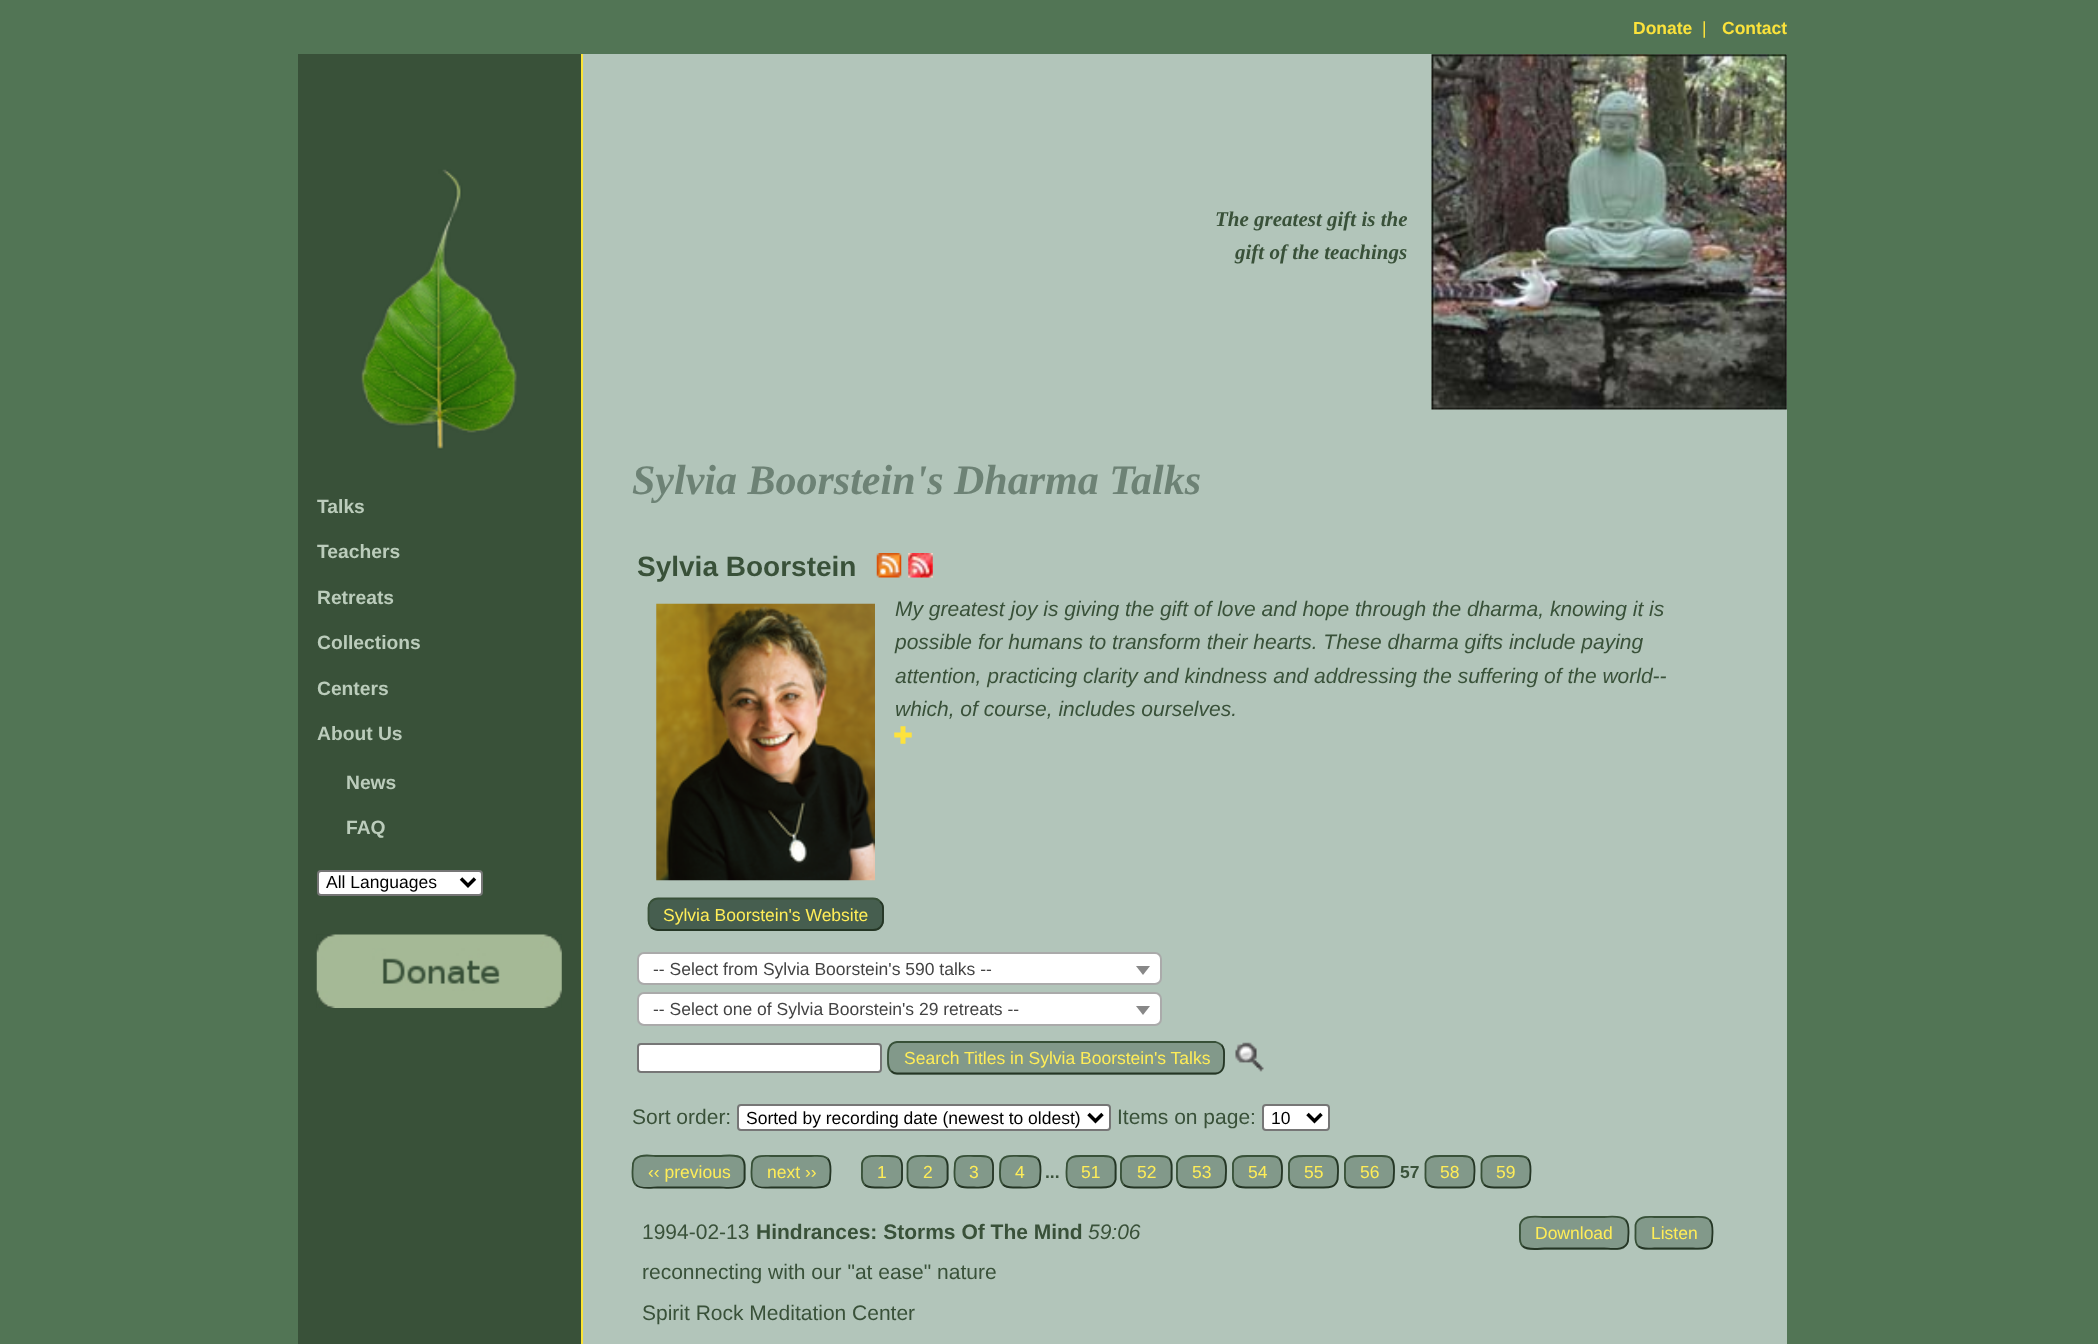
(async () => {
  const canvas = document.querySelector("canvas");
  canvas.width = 2098;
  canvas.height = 1344;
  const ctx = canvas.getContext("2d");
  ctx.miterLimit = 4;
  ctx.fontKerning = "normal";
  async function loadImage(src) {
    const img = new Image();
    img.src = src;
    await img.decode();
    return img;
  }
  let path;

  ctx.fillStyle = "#527555";
  ctx.fillRect(0, 0, 2098, 1344);
  ctx.fillStyle = "#395139";
  ctx.fillRect(298, 54, 283, 1290);
  ctx.drawImage(await loadImage("img/1.png"), 361, 169, 156, 281);
  ctx.fillStyle = "#ffffff";
  ctx.beginPath();
  ctx.roundRect(318, 871, 164, 24, 3);
  ctx.fill();
  ctx.strokeStyle = "#767676";
  ctx.lineWidth = 2;
  ctx.stroke();
  path = new Path2D("M461 878.5L468 885.5L475 878.5");
  ctx.strokeStyle = "#000000";
  ctx.lineWidth = 3.5;
  ctx.stroke(path);
  ctx.drawImage(await loadImage("img/2.png"), 316, 934, 246, 74);
  ctx.fillStyle = "#fbe436";
  ctx.fillRect(581, 54, 2, 1290);
  ctx.fillStyle = "#b2c5ba";
  ctx.fillRect(583, 54, 1204, 1290);
  ctx.drawImage(await loadImage("img/3.png"), 1431, 54, 356, 356);
  ctx.drawImage(await loadImage("img/4.png"), 876, 553, 26, 25);
  ctx.drawImage(await loadImage("img/5.png"), 908, 553, 25, 25);
  ctx.drawImage(await loadImage("img/6.png"), 894, 726, 18, 18);
  ctx.drawImage(await loadImage("img/7.png"), 656, 603, 219, 278);
  ctx.fillStyle = "#465e4f";
  ctx.beginPath();
  ctx.roundRect(648, 898, 236, 33, 11);
  ctx.fill();
  path = new Path2D("M880 901.5C882 903 883 905.5 883 908V920.5C883 923 882 925.5 880 927.5C878.5 929 876 930 873 930H658C655.5 930 653 929 651 927.5");
  ctx.strokeStyle = "#253625";
  ctx.lineWidth = 1.8;
  ctx.stroke(path);
  path = new Path2D("M651 927.5C649.5 925.5 648.5 923 648.5 920.5V908C648.5 905.5 649.5 903 651 901.5C653 899.5 655.5 898.5 658 898.5H873C876 898.5 878.5 899.5 880 901.5");
  ctx.strokeStyle = "#385138";
  ctx.stroke(path);
  ctx.fillStyle = "#ffffff";
  ctx.beginPath();
  ctx.roundRect(638, 953, 523, 31, 6);
  ctx.fill();
  ctx.strokeStyle = "#aaaaaa";
  ctx.lineWidth = 2;
  ctx.stroke();
  ctx.fillStyle = "#888888";
  path = new Path2D("M1136 966H1150L1143 975Z");
  ctx.fill(path);
  ctx.fillStyle = "#ffffff";
  ctx.beginPath();
  ctx.roundRect(638, 993, 523, 32, 6);
  ctx.fill();
  ctx.stroke();
  ctx.fillStyle = "#888888";
  path = new Path2D("M1136 1006H1150L1143 1015Z");
  ctx.fill(path);
  ctx.fillStyle = "#ffffff";
  ctx.beginPath();
  ctx.roundRect(638, 1044, 243, 28, 3);
  ctx.fill();
  ctx.strokeStyle = "#767676";
  ctx.stroke();
  ctx.fillStyle = "#82998a";
  ctx.beginPath();
  ctx.roundRect(887, 1041, 338, 34, 11);
  ctx.fill();
  path = new Path2D("M1221.5 1045C1225 1048.5 1224 1053.5 1224 1058C1224 1064.5 1224.5 1072.5 1215.5 1073.5H897C894.5 1073.5 892.5 1072.5 891 1071");
  ctx.strokeStyle = "#253625";
  ctx.lineWidth = 1.8;
  ctx.stroke(path);
  path = new Path2D("M891 1071C887.5 1067.5 888 1062.5 888 1058C888 1051 888 1043 897 1042H1215.5C1217.5 1042.5 1219.5 1043.5 1221.5 1045");
  ctx.strokeStyle = "#385138";
  ctx.stroke(path);
  ctx.drawImage(await loadImage("img/8.png"), 1235, 1042, 29, 30);
  ctx.fillStyle = "#ffffff";
  ctx.beginPath();
  ctx.roundRect(738, 1105, 372, 25, 3);
  ctx.fill();
  ctx.strokeStyle = "#767676";
  ctx.lineWidth = 2;
  ctx.stroke();
  path = new Path2D("M1088.5 1114L1095.5 1121L1102.5 1114");
  ctx.strokeStyle = "#000000";
  ctx.lineWidth = 3.5;
  ctx.stroke(path);
  ctx.beginPath();
  ctx.roundRect(1263, 1105, 66, 25, 3);
  ctx.fill();
  ctx.strokeStyle = "#767676";
  ctx.lineWidth = 2;
  ctx.stroke();
  path = new Path2D("M1307.5 1114L1314.5 1121L1321.5 1114");
  ctx.strokeStyle = "#000000";
  ctx.lineWidth = 3.5;
  ctx.stroke(path);
  ctx.fillStyle = "#82998a";
  ctx.beginPath();
  ctx.roundRect(632, 1155, 114, 33, 11);
  ctx.fill();
  path = new Path2D("M742 1158.5C745.5 1162 744.5 1167 744.5 1171.5V1179.5C742 1190.5 726.5 1187.5 719.5 1187.5H657.5C652.5 1187.5 640.5 1190 635.5 1184.5");
  ctx.strokeStyle = "#253625";
  ctx.lineWidth = 1.8;
  ctx.stroke(path);
  path = new Path2D("M635.5 1184.5C632 1181 632.5 1176 632.5 1171.5L633 1163.5C635 1152.5 650.5 1156 657.5 1156H719.5C724.5 1156 736.5 1153.5 742 1158.5");
  ctx.strokeStyle = "#385138";
  ctx.stroke(path);
  ctx.beginPath();
  ctx.roundRect(751, 1155, 80, 33, 11);
  ctx.fill();
  path = new Path2D("M827.5 1158.5C831 1162 830.5 1167 830.5 1171.5L830 1179.5C828.5 1189 818 1187.5 811 1187.5H771C766 1187.5 758.5 1189 754.5 1184.5");
  ctx.strokeStyle = "#253625";
  ctx.stroke(path);
  path = new Path2D("M754.5 1184.5C751 1181 751.5 1176 751.5 1171.5L752 1163.5C753.5 1154.5 764 1156 771 1156H811C816 1156 823.5 1154.5 827.5 1158.5");
  ctx.strokeStyle = "#385138";
  ctx.stroke(path);
  ctx.beginPath();
  ctx.roundRect(861, 1155, 42, 33, 11);
  ctx.fill();
  path = new Path2D("M899.5 1158.5C903 1162 902 1167 902 1171.5V1179.5C900 1189.5 889 1187.5 882 1187.5H875C871 1187.5 867.5 1187.5 864.5 1184.5");
  ctx.strokeStyle = "#253625";
  ctx.stroke(path);
  path = new Path2D("M864.5 1184.5C861 1181 862 1176 862 1171.5V1163.5C864 1154 875 1156 882 1156H889C893 1156 896.5 1156 899.5 1158.5");
  ctx.strokeStyle = "#385138";
  ctx.stroke(path);
  ctx.beginPath();
  ctx.roundRect(907, 1155, 42, 33, 11);
  ctx.fill();
  path = new Path2D("M945 1158.5C948.5 1162 947.5 1167 947.5 1171.5V1179.5C945.5 1189.5 934.5 1187.5 927.5 1187.5H920.5C916.5 1187.5 913 1187.5 910 1184.5");
  ctx.strokeStyle = "#253625";
  ctx.stroke(path);
  path = new Path2D("M910 1184.5C906.5 1181 907.5 1176 907.5 1171.5V1163.5C909.5 1154 920.5 1156 927.5 1156H934.5C938.5 1156 942 1156 945 1158.5");
  ctx.strokeStyle = "#385138";
  ctx.stroke(path);
  ctx.beginPath();
  ctx.roundRect(954, 1155, 40, 33, 11);
  ctx.fill();
  path = new Path2D("M990.5 1158.5C994 1162 993 1167 993 1171.5V1179.5C991 1189 981 1187.5 974 1187.5H967.5C963.5 1187.5 960.5 1187.5 957.5 1184.5");
  ctx.strokeStyle = "#253625";
  ctx.stroke(path);
  path = new Path2D("M957.5 1184.5C954 1181 954.5 1176 954.5 1171.5L955 1163.5C956.5 1154 966.5 1156 974 1156H980.5C984 1156 987.5 1156 990.5 1158.5");
  ctx.strokeStyle = "#385138";
  ctx.stroke(path);
  ctx.beginPath();
  ctx.roundRect(999, 1155, 42, 33, 11);
  ctx.fill();
  path = new Path2D("M1037.5 1158.5C1041 1162 1040.5 1167 1040.5 1171.5L1040 1179.5C1038.5 1189.5 1027.5 1187.5 1020 1187.5H1013C1009.5 1187.5 1006 1187.5 1003 1184.5");
  ctx.strokeStyle = "#253625";
  ctx.stroke(path);
  path = new Path2D("M1003 1184.5C999.5 1181 1000 1176 1000 1171.5L1000.5 1163.5C1002 1154 1013 1156 1020 1156H1027C1031 1156 1034.5 1156 1037.5 1158.5");
  ctx.strokeStyle = "#385138";
  ctx.stroke(path);
  ctx.beginPath();
  ctx.roundRect(1066, 1155, 51, 33, 11);
  ctx.fill();
  path = new Path2D("M1113 1158.5C1116.5 1162 1115.5 1167 1115.5 1171.5V1179.5C1114 1187 1107 1187.5 1101 1187.5H1081C1077 1187.5 1072.5 1188 1069.5 1184.5");
  ctx.strokeStyle = "#253625";
  ctx.stroke(path);
  path = new Path2D("M1069.5 1184.5C1066 1181 1066.5 1176 1066.5 1171.5L1067 1163.5C1068.5 1156.5 1075 1156 1081 1156H1101C1105.5 1156 1109.5 1155.5 1113 1158.5");
  ctx.strokeStyle = "#385138";
  ctx.stroke(path);
  ctx.beginPath();
  ctx.roundRect(1120, 1155, 53, 33, 11);
  ctx.fill();
  path = new Path2D("M1169 1158.5C1172.5 1162 1171.5 1167 1171.5 1171.5V1179.5C1170 1187 1163 1187.5 1157 1187.5H1136C1131.5 1187.5 1127 1188 1123.5 1184.5");
  ctx.strokeStyle = "#253625";
  ctx.stroke(path);
  path = new Path2D("M1123.5 1184.5C1120 1181 1121 1176 1121 1171.5V1163.5C1122.5 1156 1129.5 1156 1136 1156H1157C1161 1156 1165.5 1155.5 1169 1158.5");
  ctx.strokeStyle = "#385138";
  ctx.stroke(path);
  ctx.beginPath();
  ctx.roundRect(1176, 1155, 51, 33, 11);
  ctx.fill();
  path = new Path2D("M1223 1158.5C1226.5 1162 1226 1167 1226 1171.5L1225.5 1179.5C1224 1187 1217.5 1187.5 1211.5 1187.5H1191.5C1187 1187.5 1183 1188 1179.5 1184.5");
  ctx.strokeStyle = "#253625";
  ctx.stroke(path);
  path = new Path2D("M1179.5 1184.5C1176 1181 1177 1176 1177 1171.5V1163.5C1178.5 1156.5 1185.5 1156 1191.5 1156H1211.5C1215.5 1156 1220 1155.5 1223 1158.5");
  ctx.strokeStyle = "#385138";
  ctx.stroke(path);
  ctx.beginPath();
  ctx.roundRect(1232, 1155, 51, 33, 11);
  ctx.fill();
  path = new Path2D("M1279 1158.5C1282.5 1162 1282 1167 1282 1171.5L1281.5 1179.5C1280 1187 1273.5 1187.5 1267.5 1187.5H1247.5C1243 1187.5 1239 1188 1235.5 1184.5");
  ctx.strokeStyle = "#253625";
  ctx.stroke(path);
  path = new Path2D("M1235.5 1184.5C1232 1181 1233 1176 1233 1171.5V1163.5C1234.5 1156.5 1241.5 1156 1247.5 1156H1267.5C1271.5 1156 1276 1155.5 1279 1158.5");
  ctx.strokeStyle = "#385138";
  ctx.stroke(path);
  ctx.beginPath();
  ctx.roundRect(1288, 1155, 51, 33, 11);
  ctx.fill();
  path = new Path2D("M1335 1158.5C1338.5 1162 1338 1167 1338 1171.5L1337.5 1179.5C1336 1187 1329.5 1187.5 1323.5 1187.5H1303.5C1299 1187.5 1295 1188 1291.5 1184.5");
  ctx.strokeStyle = "#253625";
  ctx.stroke(path);
  path = new Path2D("M1291.5 1184.5C1288 1181 1289 1176 1289 1171.5V1163.5C1290.5 1156.5 1297.5 1156 1303.5 1156H1323.5C1327.5 1156 1332 1155.5 1335 1158.5");
  ctx.strokeStyle = "#385138";
  ctx.stroke(path);
  ctx.beginPath();
  ctx.roundRect(1344, 1155, 51, 33, 11);
  ctx.fill();
  path = new Path2D("M1391 1158.5C1394.5 1162 1394 1167 1394 1171.5L1393.5 1179.5C1392 1187 1385.5 1187.5 1379.5 1187.5H1359.5C1355 1187.5 1351 1188 1347.5 1184.5");
  ctx.strokeStyle = "#253625";
  ctx.stroke(path);
  path = new Path2D("M1347.5 1184.5C1344 1181 1345 1176 1345 1171.5V1163.5C1346.5 1156.5 1353.5 1156 1359.5 1156H1379.5C1383.5 1156 1388 1155.5 1391 1158.5");
  ctx.strokeStyle = "#385138";
  ctx.stroke(path);
  ctx.beginPath();
  ctx.roundRect(1425, 1155, 50, 33, 11);
  ctx.fill();
  path = new Path2D("M1471.5 1158.5C1475 1162 1474.5 1167 1474.5 1171.5L1474 1179.5C1472.5 1187 1466 1187.5 1460 1187.5H1440C1435.5 1187.5 1431.5 1188 1428 1184.5");
  ctx.strokeStyle = "#253625";
  ctx.stroke(path);
  path = new Path2D("M1428 1184.5C1424.5 1181 1425.5 1176 1425.5 1171.5V1163.5C1427 1156.5 1434 1156 1440 1156H1460C1464 1156 1468.5 1155.5 1471.5 1158.5");
  ctx.strokeStyle = "#385138";
  ctx.stroke(path);
  ctx.beginPath();
  ctx.roundRect(1481, 1155, 50, 33, 11);
  ctx.fill();
  path = new Path2D("M1527.5 1158.5C1531 1162 1530.5 1167 1530.5 1171.5L1530 1179.5C1528.5 1187 1522 1187.5 1516 1187.5H1496C1491.5 1187.5 1487.5 1188 1484 1184.5");
  ctx.strokeStyle = "#253625";
  ctx.stroke(path);
  path = new Path2D("M1484 1184.5C1480.5 1181 1481.5 1176 1481.5 1171.5V1163.5C1483 1156.5 1490 1156 1496 1156H1516C1520 1156 1524.5 1155.5 1527.5 1158.5");
  ctx.strokeStyle = "#385138";
  ctx.stroke(path);
  ctx.beginPath();
  ctx.roundRect(1519, 1216, 110, 34, 11);
  ctx.fill();
  path = new Path2D("M1625.5 1220C1629 1223.5 1628.5 1228.5 1628.5 1233L1628 1241C1626 1251.5 1611 1248.5 1604 1248.5H1544.5C1539.5 1248.5 1528 1251 1522.5 1246");
  ctx.strokeStyle = "#253625";
  ctx.stroke(path);
  path = new Path2D("M1522.5 1246C1519 1242.5 1520 1237.5 1520 1233V1225C1522 1214 1537 1217 1544.5 1217H1604C1609 1217 1620.5 1215 1625.5 1220");
  ctx.strokeStyle = "#385138";
  ctx.stroke(path);
  ctx.beginPath();
  ctx.roundRect(1635, 1216, 78, 34, 11);
  ctx.fill();
  path = new Path2D("M1709.5 1220C1713 1223.5 1712.5 1228.5 1712.5 1233L1712 1241C1710.5 1250 1700 1248.5 1693 1248.5H1654.5C1649.5 1248.5 1642.5 1250 1638 1246");
  ctx.strokeStyle = "#253625";
  ctx.stroke(path);
  path = new Path2D("M1638 1246C1634.5 1242.5 1635.5 1237.5 1635.5 1233V1225C1637.5 1215.5 1647.5 1217 1654.5 1217H1693C1698.5 1217 1705.5 1215.5 1709.5 1220");
  ctx.strokeStyle = "#385138";
  ctx.stroke(path);
  ctx.font = "bold 17.5px Liberation Sans";
  ctx.fillStyle = "#fbe23b";
  ctx.fillText("Donate", 1633, 34);
  ctx.font = "17.5px Liberation Sans";
  ctx.fillText("|", 1702, 34);
  ctx.font = "bold 17.5px Liberation Sans";
  ctx.fillText("Contact", 1722, 34);
  ctx.font = "bold 19.25px Liberation Sans";
  ctx.fillStyle = "#bbccbb";
  for (const [text, x, y] of [
    ["Talks", 317, 513],
    ["Teachers", 317, 558],
    ["Retreats", 317, 604],
    ["Collections", 317, 649],
    ["Centers", 317, 695],
    ["About Us", 317, 740],
    ["News", 346, 789],
    ["FAQ", 346, 834],
  ]) {
    ctx.fillText(text, x, y);
  }
  ctx.font = "17.5px Liberation Sans";
  ctx.fillStyle = "#000000";
  ctx.fillText("All Languages", 326, 888);
  ctx.font = "italic bold 21px Liberation Serif";
  ctx.fillStyle = "#395139";
  ctx.fillText("The greatest gift is the", 1215, 226);
  ctx.fillText("gift of the teachings", 1235, 259);
  ctx.font = "italic bold 42px Liberation Serif";
  ctx.fillStyle = "#6d8275";
  ctx.fillText("Sylvia Boorstein's Dharma Talks", 632, 494);
  ctx.font = "bold 28px Liberation Sans";
  ctx.fillStyle = "#395139";
  ctx.fillText("Sylvia Boorstein", 637, 576);
  ctx.font = "italic 21px Liberation Sans";
  for (const [text, x, y] of [
    ["My greatest joy is giving the gift of love and hope through the dharma, knowing it is", 895, 616],
    ["possible for humans to transform their hearts. These dharma gifts include paying", 895, 649],
    ["attention, practicing clarity and kindness and addressing the suffering of the world--", 895, 683],
    ["which, of course, includes ourselves.", 895, 716],
  ]) {
    ctx.fillText(text, x, y);
  }
  ctx.font = "17.5px Liberation Sans";
  ctx.fillStyle = "#ffed58";
  ctx.fillText("Sylvia Boorstein's Website", 663, 921);
  ctx.fillStyle = "#444444";
  ctx.fillText("-- Select from Sylvia Boorstein's 590 talks --", 653, 975);
  ctx.fillText("-- Select one of Sylvia Boorstein's 29 retreats --", 653, 1015);
  ctx.fillStyle = "#ffed58";
  ctx.fillText("Search Titles in Sylvia Boorstein's Talks", 904, 1064);
  ctx.font = "21px Liberation Sans";
  ctx.fillStyle = "#395139";
  ctx.fillText("Sort order:", 632, 1124);
  ctx.font = "17.5px Liberation Sans";
  ctx.fillStyle = "#000000";
  ctx.fillText("Sorted by recording date (newest to oldest)", 746, 1124);
  ctx.font = "21px Liberation Sans";
  ctx.fillStyle = "#395139";
  ctx.fillText("Items on page:", 1117, 1124);
  ctx.font = "17.5px Liberation Sans";
  ctx.fillStyle = "#000000";
  ctx.fillText("10", 1271, 1124);
  ctx.fillStyle = "#ffed58";
  for (const [text, x, y] of [
    ["‹‹ previous", 648, 1178],
    ["next ››", 767, 1178],
    ["1", 877, 1178],
    ["2", 923, 1178],
    ["3", 969, 1178],
    ["4", 1015, 1178],
  ]) {
    ctx.fillText(text, x, y);
  }
  ctx.font = "bold 17.5px Liberation Sans";
  ctx.fillStyle = "#395139";
  ctx.fillText("...", 1045, 1178);
  ctx.font = "17.5px Liberation Sans";
  ctx.fillStyle = "#ffed58";
  for (const [text, x, y] of [
    ["51", 1081, 1178],
    ["52", 1137, 1178],
    ["53", 1192, 1178],
    ["54", 1248, 1178],
    ["55", 1304, 1178],
    ["56", 1360, 1178],
  ]) {
    ctx.fillText(text, x, y);
  }
  ctx.font = "bold 17.5px Liberation Sans";
  ctx.fillStyle = "#395139";
  ctx.fillText("57", 1400, 1178);
  ctx.font = "17.5px Liberation Sans";
  ctx.fillStyle = "#ffed58";
  ctx.fillText("58", 1440, 1178);
  ctx.fillText("59", 1496, 1178);
  ctx.font = "21px Liberation Sans";
  ctx.fillStyle = "#395139";
  ctx.fillText("1994-02-13", 642, 1239);
  ctx.font = "bold 21px Liberation Sans";
  ctx.fillText("Hindrances: Storms Of The Mind", 756, 1239);
  ctx.font = "italic 21px Liberation Sans";
  ctx.fillText("59:06", 1088, 1239);
  ctx.font = "17.5px Liberation Sans";
  ctx.fillStyle = "#ffed58";
  ctx.fillText("Download", 1535, 1239);
  ctx.fillText("Listen", 1651, 1239);
  ctx.font = "21px Liberation Sans";
  ctx.fillStyle = "#395139";
  ctx.fillText("reconnecting with our \"at ease\" nature", 642, 1279);
  ctx.fillText("Spirit Rock Meditation Center", 642, 1320);
})();
